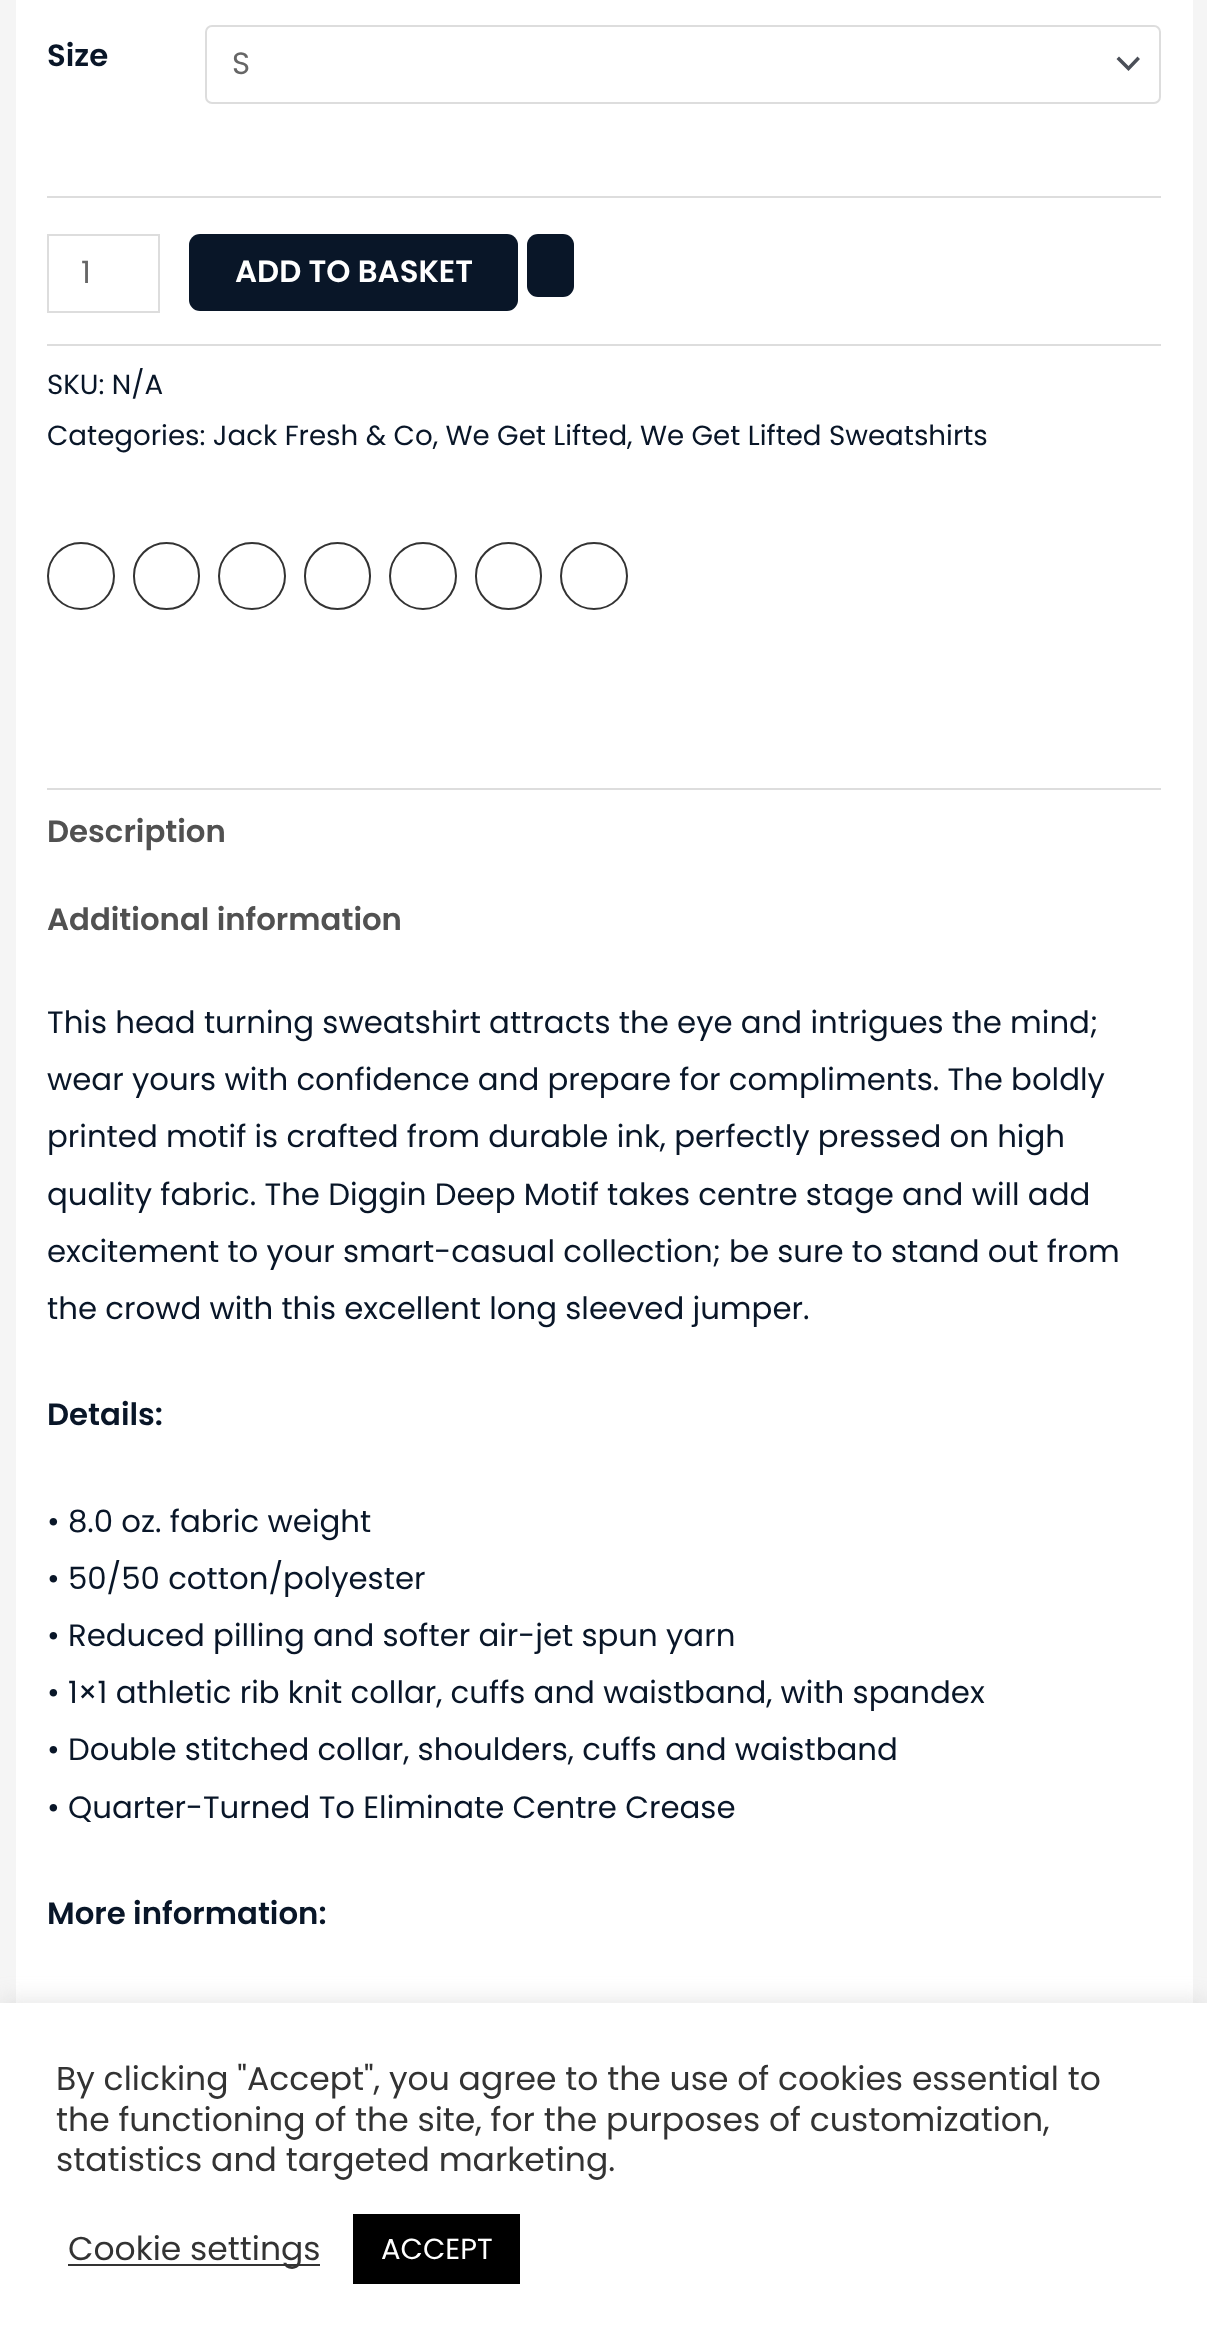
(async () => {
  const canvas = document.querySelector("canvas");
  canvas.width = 1207;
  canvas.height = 2350;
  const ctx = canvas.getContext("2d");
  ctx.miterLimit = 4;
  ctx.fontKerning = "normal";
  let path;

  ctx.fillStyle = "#f5f5f5";
  ctx.fillRect(0, 0, 1207, 2350);
  ctx.fillStyle = "#ffffff";
  ctx.fillRect(16, 0, 1177, 2003);
  ctx.fillStyle = "#dddddd";
  ctx.fillRect(47, 196, 1114, 2);
  ctx.fillStyle = "#4b4f58";
  path = new Path2D("M1116.5 59L1128.5 71L1140 59L1137.5 56.5L1128.5 66L1119 56.5Z");
  ctx.fill(path);
  ctx.beginPath();
  ctx.roundRect(206, 26, 954, 77, 6);
  ctx.strokeStyle = "#dddddd";
  ctx.lineWidth = 2;
  ctx.stroke();
  ctx.strokeRect(48, 235, 111, 77);
  ctx.fillStyle = "#091628";
  ctx.beginPath();
  ctx.roundRect(189, 234, 329, 77, 11);
  ctx.fill();
  ctx.beginPath();
  ctx.roundRect(527, 234, 47, 63, 11);
  ctx.fill();
  ctx.fillStyle = "#dddddd";
  ctx.fillRect(47, 344, 1114, 2);
  ctx.beginPath();
  ctx.arc(81, 576, 33, 0, Math.PI * 2);
  ctx.strokeStyle = "#333333";
  ctx.stroke();
  ctx.beginPath();
  ctx.roundRect(134, 543, 65, 66, 32.5);
  ctx.stroke();
  ctx.beginPath();
  ctx.arc(252, 576, 33, 0, Math.PI * 2);
  ctx.stroke();
  ctx.beginPath();
  ctx.roundRect(305, 543, 65, 66, 32.5);
  ctx.stroke();
  ctx.beginPath();
  ctx.arc(423, 576, 33, 0, Math.PI * 2);
  ctx.stroke();
  ctx.beginPath();
  ctx.roundRect(476, 543, 65, 66, 32.5);
  ctx.stroke();
  ctx.beginPath();
  ctx.arc(594, 576, 33, 0, Math.PI * 2);
  ctx.stroke();
  ctx.fillRect(47, 788, 1114, 2);
  ctx.fillStyle = "rgba(172, 171, 171, 0.3)";
  ctx.filter = "blur(11px)";
  ctx.beginPath();
  ctx.rect(0, 2000, 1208, 349);
  ctx.fill();
  ctx.filter = "none";
  for (const [x, y, w, h, color] of [
    [0, 2003, 1207, 347, "#ffffff"],
    [68, 2264, 252, 2, "#333333"],
    [353, 2214, 167, 70, "#000000"],
  ]) {
    ctx.fillStyle = color;
    ctx.fillRect(x, y, w, h);
  }
  ctx.font = "600 30.8px Poppins";
  ctx.fillStyle = "#091628";
  ctx.fillText("Size", 47, 66);
  ctx.font = "30.8px Poppins";
  ctx.fillStyle = "#666666";
  ctx.fillText("S", 232, 74);
  ctx.fillText("1", 81, 283);
  ctx.font = "600 30.8px Poppins";
  ctx.fillStyle = "#ffffff";
  ctx.fillText("ADD TO BASKET", 235, 282);
  ctx.font = "27.7px Poppins";
  ctx.fillStyle = "#091628";
  ctx.fillText("SKU: N/A", 47, 394);
  ctx.fillText("Categories: Jack Fresh & Co, We Get Lifted, We Get Lifted Sweatshirts", 47, 445);
  ctx.font = "600 30.8px Poppins";
  ctx.fillStyle = "#515151";
  ctx.fillText("Description", 47, 842);
  ctx.fillText("Additional information", 47, 930);
  ctx.font = "30.8px Poppins";
  ctx.fillStyle = "#091628";
  for (const [text, x, y] of [
    ["This head turning sweatshirt attracts the eye and intrigues the mind;", 47, 1033],
    ["wear yours with confidence and prepare for compliments. The boldly", 47, 1090],
    ["printed motif is crafted from durable ink, perfectly pressed on high", 47, 1147],
    ["quality fabric. The Diggin Deep Motif takes centre stage and will add", 47, 1205],
    ["excitement to your smart-casual collection; be sure to stand out from", 47, 1262],
    ["the crowd with this excellent long sleeved jumper.", 47, 1319],
  ]) {
    ctx.fillText(text, x, y);
  }
  ctx.font = "600 30.8px Poppins";
  ctx.fillText("Details:", 47, 1425);
  ctx.font = "30.8px Poppins";
  for (const [text, x, y] of [
    ["• 8.0 oz. fabric weight", 47, 1532],
    ["• 50/50 cotton/polyester", 47, 1589],
    ["• Reduced pilling and softer air-jet spun yarn", 47, 1646],
    ["• 1×1 athletic rib knit collar, cuffs and waistband, with spandex", 47, 1703],
    ["• Double stitched collar, shoulders, cuffs and waistband", 47, 1760],
    ["• Quarter-Turned To Eliminate Centre Crease", 47, 1818],
  ]) {
    ctx.fillText(text, x, y);
  }
  ctx.font = "600 30.8px Poppins";
  ctx.fillText("More information:", 47, 1924);
  ctx.font = "33px Poppins";
  ctx.fillStyle = "#333333";
  for (const [text, x, y] of [
    ["By clicking \"Accept\", you agree to the use of cookies essential to", 56, 2090],
    ["the functioning of the site, for the purposes of customization,", 56, 2131],
    ["statistics and targeted marketing.", 56, 2171],
    ["Cookie settings", 68, 2260],
  ]) {
    ctx.fillText(text, x, y);
  }
  ctx.font = "29px Poppins";
  ctx.fillStyle = "#ffffff";
  ctx.fillText("ACCEPT", 381, 2259);
})();
